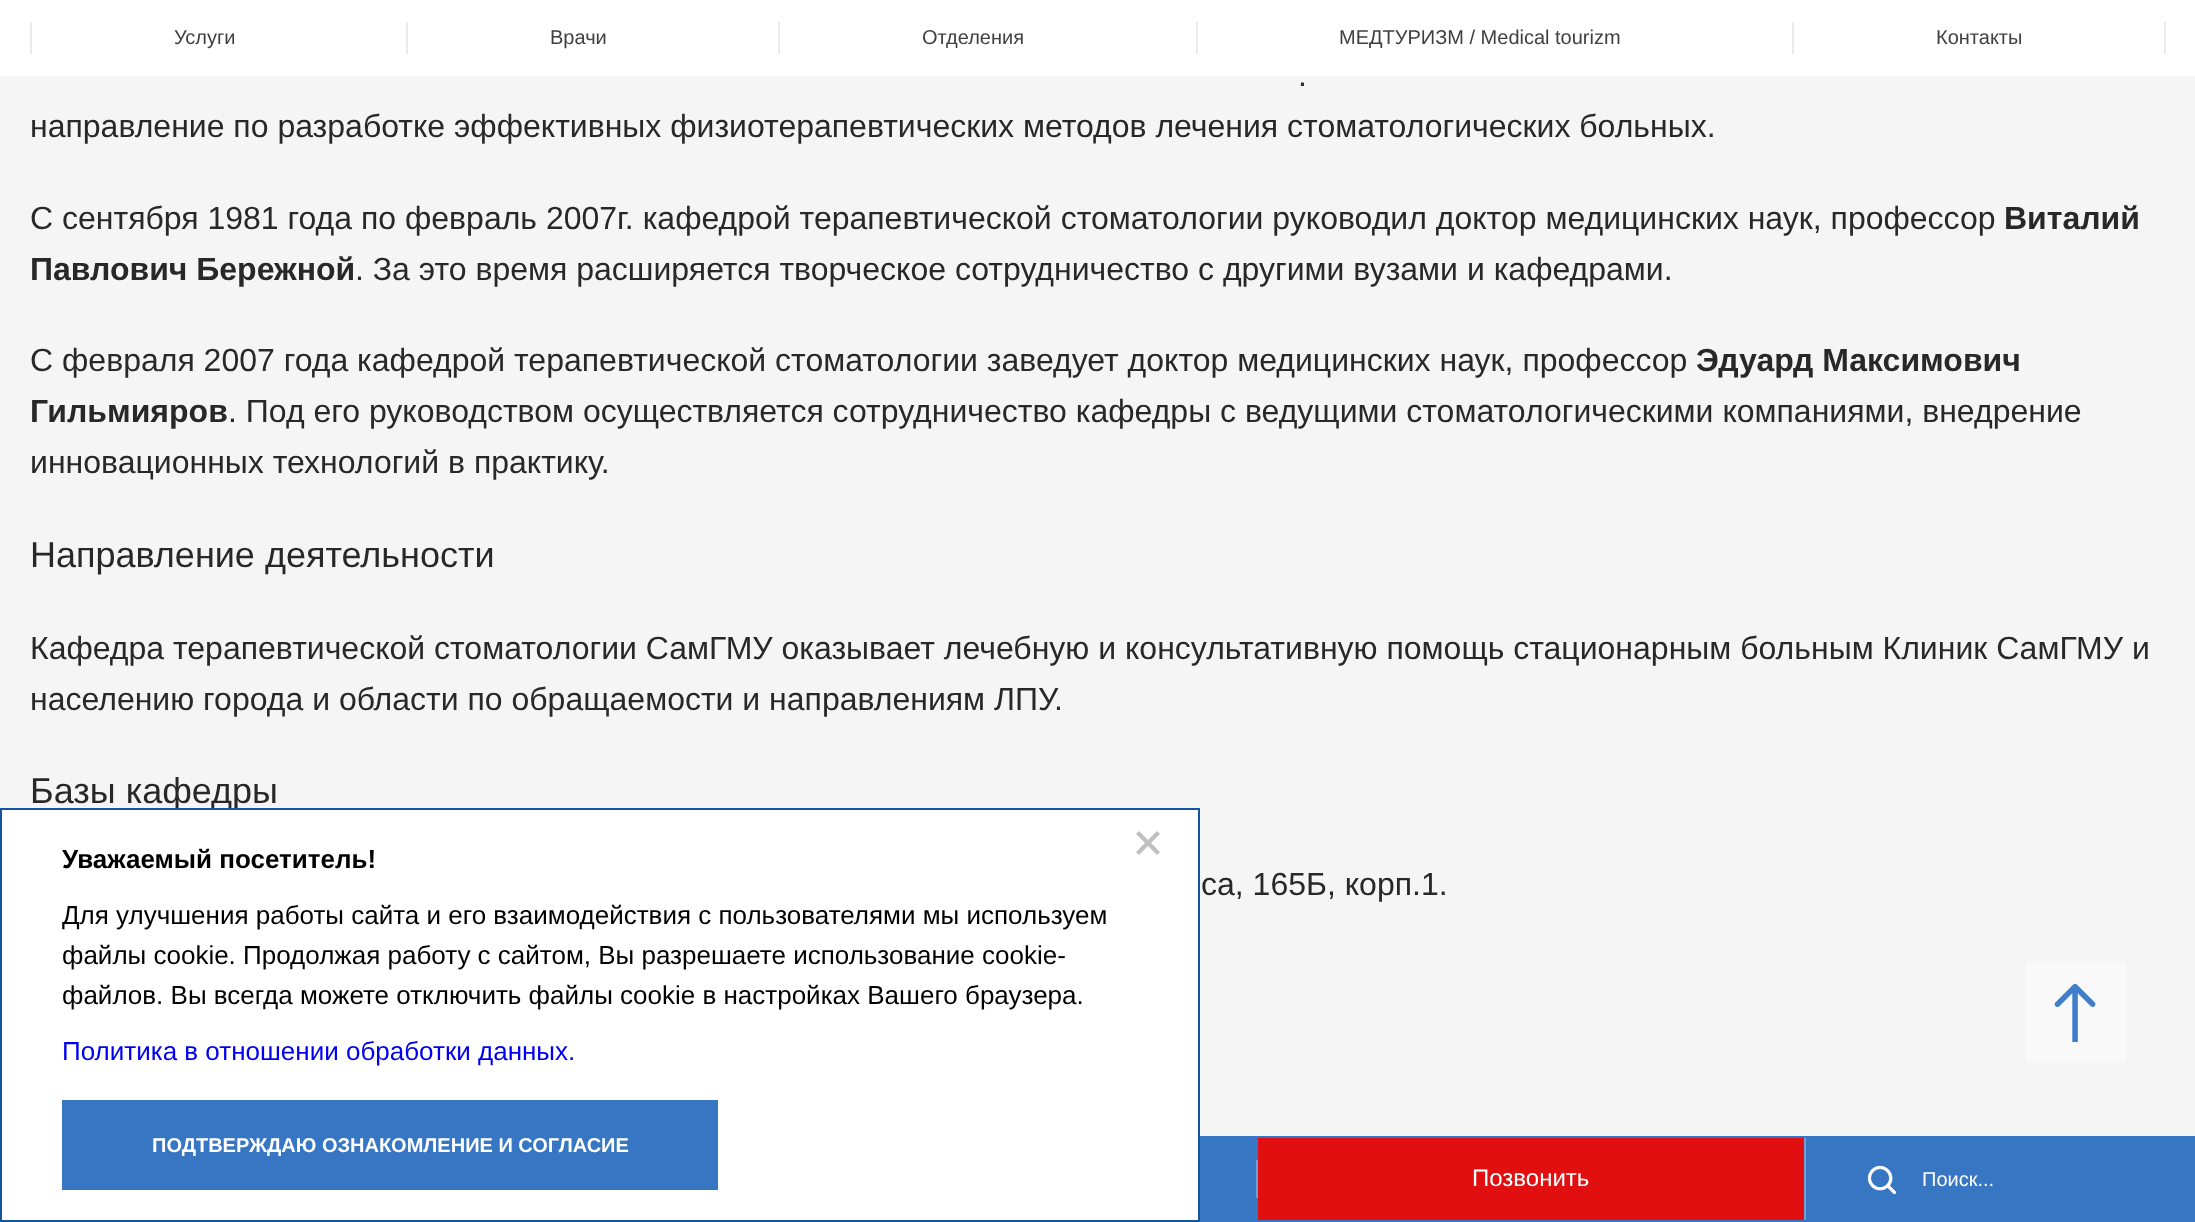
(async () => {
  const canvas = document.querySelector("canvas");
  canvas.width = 2195;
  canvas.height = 1222;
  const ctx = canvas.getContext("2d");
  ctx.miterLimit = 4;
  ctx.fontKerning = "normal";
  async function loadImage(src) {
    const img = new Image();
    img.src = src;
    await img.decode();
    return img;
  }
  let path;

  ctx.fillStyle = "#f5f5f5";
  ctx.fillRect(0, 0, 2195, 1222);
  for (const [x, y, w, h, color] of [
    [0, 0, 2195, 76, "#ffffff"],
    [2164, 22, 2, 32, "#eaeaea"],
    [30, 22, 2, 32, "#eaeaea"],
    [406, 22, 2, 32, "#eaeaea"],
    [778, 22, 2, 32, "#eaeaea"],
    [1196, 22, 2, 32, "#eaeaea"],
    [1792, 22, 2, 32, "#eaeaea"],
    [1200, 1136, 995, 86, "#3776c3"],
    [1804, 1138, 2, 82, "#739fd5"],
    [1256, 1160, 2, 38, "#739fd5"],
    [1258, 1138, 546, 82, "#e10f0f"],
  ]) {
    ctx.fillStyle = color;
    ctx.fillRect(x, y, w, h);
  }
  ctx.drawImage(await loadImage("img/1.png"), 1867, 1165, 30, 30);
  ctx.fillStyle = "#f9f9f9";
  ctx.fillRect(2026, 962, 100, 100);
  ctx.drawImage(await loadImage("img/2.png"), 2054, 983, 42, 59);
  ctx.font = "20px Liberation Sans";
  ctx.fillStyle = "#404040";
  for (const [text, x, y] of [
    ["Услуги", 174, 44],
    ["Врачи", 550, 44],
    ["Отделения", 922, 44],
    ["МЕДТУРИЗМ / Medical tourizm", 1339, 44],
    ["Контакты", 1936, 44],
  ]) {
    ctx.fillText(text, x, y);
  }
  ctx.font = "32px Liberation Sans";
  ctx.fillStyle = "#282828";
  for (const [text, x, y] of [
    [".", 1298, 86],
    ["направление по разработке эффективных физиотерапевтических методов лечения стоматологических больных.", 30, 137],
    ["С сентября 1981 года по февраль 2007г. кафедрой терапевтической стоматологии руководил доктор медицинских наук, профессор", 30, 229],
  ]) {
    ctx.fillText(text, x, y);
  }
  ctx.font = "bold 32px Liberation Sans";
  ctx.fillText("Виталий", 2004, 229);
  ctx.fillText("Павлович Бережной", 30, 280);
  ctx.font = "32px Liberation Sans";
  ctx.fillText(". За это время расширяется творческое сотрудничество с другими вузами и кафедрами.", 355, 280);
  ctx.fillText("С февраля 2007 года кафедрой терапевтической стоматологии заведует доктор медицинских наук, профессор", 30, 371);
  ctx.font = "bold 32px Liberation Sans";
  ctx.fillText("Эдуард Максимович", 1696, 371);
  ctx.fillText("Гильмияров", 30, 422);
  ctx.font = "32px Liberation Sans";
  ctx.fillText(". Под его руководством осуществляется сотрудничество кафедры с ведущими стоматологическими компаниями, внедрение", 228, 422);
  ctx.fillText("инновационных технологий в практику.", 30, 473);
  ctx.font = "36px Liberation Sans";
  ctx.fillText("Направление деятельности", 30, 567);
  ctx.font = "32px Liberation Sans";
  ctx.fillText("Кафедра терапевтической стоматологии СамГМУ оказывает лечебную и консультативную помощь стационарным больным Клиник СамГМУ и", 30, 659);
  ctx.fillText("населению города и области по обращаемости и направлениям ЛПУ.", 30, 710);
  ctx.font = "36px Liberation Sans";
  ctx.fillText("Базы кафедры", 30, 803);
  ctx.font = "32px Liberation Sans";
  ctx.fillText("са, 165Б, корп.1.", 1201, 895);
  ctx.font = "24px Liberation Sans";
  ctx.fillStyle = "#ffffff";
  ctx.fillText("Позвонить", 1472, 1186);
  ctx.font = "20px Liberation Sans";
  ctx.fillText("Поиск...", 1922, 1186);
  ctx.beginPath();
  ctx.rect(1, 809, 1198, 412);
  ctx.fill();
  ctx.strokeStyle = "#1554a0";
  ctx.lineWidth = 2;
  ctx.stroke();
  ctx.fillStyle = "#c0c0c0";
  path = new Path2D("M1157 831L1160 834L1139 855L1136 852Z");
  ctx.fill(path);
  path = new Path2D("M1136 834L1139 831L1160 852L1157 855Z");
  ctx.fill(path);
  ctx.font = "bold 26px Liberation Sans";
  ctx.fillStyle = "#000000";
  ctx.fillText("Уважаемый посетитель!", 62, 868);
  ctx.font = "26px Liberation Sans";
  for (const [text, x, y] of [
    ["Для улучшения работы сайта и его взаимодействия с пользователями мы используем", 62, 924],
    ["файлы cookie. Продолжая работу с сайтом, Вы разрешаете использование cookie-", 62, 964],
    ["файлов. Вы всегда можете отключить файлы cookie в настройках Вашего браузера.", 62, 1004],
  ]) {
    ctx.fillText(text, x, y);
  }
  ctx.fillStyle = "#0000ee";
  ctx.fillText("Политика в отношении обработки данных.", 62, 1060);
  ctx.fillStyle = "#3776c3";
  ctx.fillRect(62, 1100, 656, 90);
  ctx.font = "bold 20px Liberation Sans";
  ctx.fillStyle = "#ffffff";
  ctx.fillText("ПОДТВЕРЖДАЮ ОЗНАКОМЛЕНИЕ И СОГЛАСИЕ", 152, 1152);
})();
